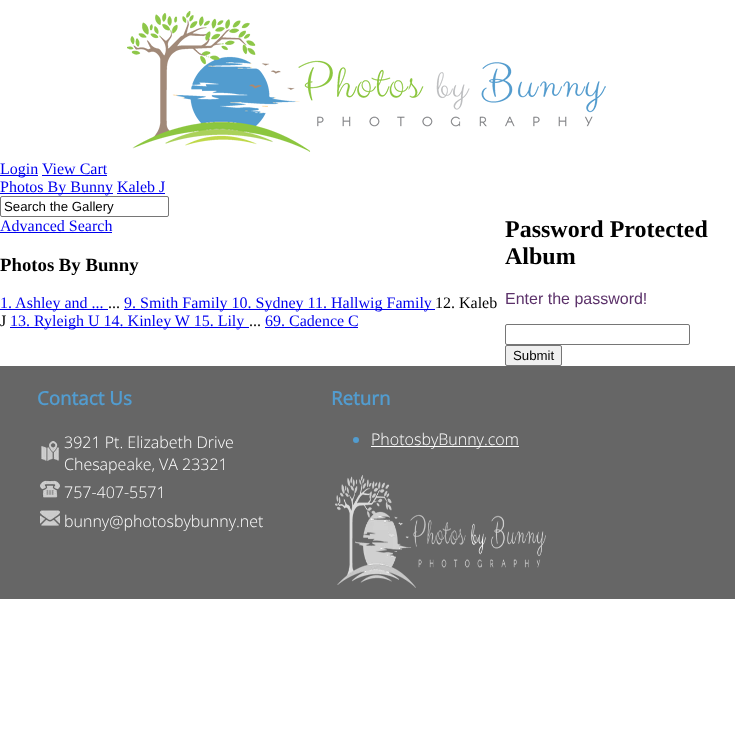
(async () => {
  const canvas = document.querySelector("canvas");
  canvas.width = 735;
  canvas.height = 739;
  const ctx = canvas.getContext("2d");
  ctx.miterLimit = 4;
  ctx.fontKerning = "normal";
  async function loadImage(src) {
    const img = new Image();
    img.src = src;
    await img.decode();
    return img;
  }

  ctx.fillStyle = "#ffffff";
  ctx.fillRect(0, 0, 735, 739);
  ctx.drawImage(await loadImage("img/1.png"), 127, 11, 479, 141);
  for (const [x, y, w, h, color] of [
    [0, 175, 38, 1, "#0000ee"],
    [42, 175, 65, 1, "#0000ee"],
    [0, 193, 113, 1, "#0000ee"],
    [117, 193, 48, 1, "#0000ee"],
  ]) {
    ctx.fillStyle = color;
    ctx.fillRect(x, y, w, h);
  }
  ctx.beginPath();
  ctx.roundRect(0.5, 196.5, 168, 20, 1.5);
  ctx.strokeStyle = "#767676";
  ctx.stroke();
  for (const [x, y, w, h, color] of [
    [0, 232, 112, 1, "#0000ee"],
    [0, 309, 108, 1, "#0000ee"],
    [124, 309, 311, 1, "#0000ee"],
    [10, 327, 239, 1, "#0000ee"],
    [265, 327, 93, 1, "#0000ee"],
  ]) {
    ctx.fillStyle = color;
    ctx.fillRect(x, y, w, h);
  }
  ctx.beginPath();
  ctx.roundRect(505.5, 324.5, 184, 20, 1.5);
  ctx.stroke();
  ctx.fillStyle = "#efefef";
  ctx.beginPath();
  ctx.roundRect(505.5, 345.5, 56, 20, 1.5);
  ctx.fill();
  ctx.stroke();
  ctx.fillStyle = "#666666";
  ctx.fillRect(0, 366, 735, 233);
  ctx.drawImage(await loadImage("img/2.png"), 41, 441, 18, 20);
  ctx.drawImage(await loadImage("img/3.png"), 40, 480, 20, 18);
  ctx.drawImage(await loadImage("img/4.png"), 40, 510, 20, 16);
  ctx.fillStyle = "#529ccf";
  ctx.beginPath();
  ctx.arc(356, 440, 3, 0, Math.PI * 2);
  ctx.fill();
  ctx.fillStyle = "#ffffff";
  ctx.fillRect(371, 446, 148, 1);
  ctx.drawImage(await loadImage("img/5.png"), 335, 475, 211, 113);
  ctx.font = "16px Liberation Serif";
  ctx.fillStyle = "#0000ee";
  ctx.fillText("Login View Cart", 0, 174);
  ctx.fillText("Photos By Bunny Kaleb J", 0, 192);
  ctx.font = "13.25px Liberation Sans";
  ctx.fillStyle = "#000000";
  ctx.fillText("Search the Gallery", 4, 211);
  ctx.font = "16px Liberation Serif";
  ctx.fillStyle = "#0000ee";
  ctx.fillText("Advanced Search", 0, 231);
  ctx.font = "bold 18.75px Liberation Serif";
  ctx.fillStyle = "#000000";
  ctx.fillText("Photos By Bunny", 0, 271);
  ctx.font = "16px Liberation Serif";
  ctx.fillStyle = "#0000ee";
  ctx.fillText("1. Ashley and ...", 0, 308);
  ctx.fillStyle = "#000000";
  ctx.fillText("...", 108, 308);
  ctx.fillStyle = "#0000ee";
  ctx.fillText("9. Smith Family 10. Sydney 11. Hallwig Family", 124, 308);
  ctx.fillStyle = "#000000";
  ctx.fillText("12. Kaleb", 435, 308);
  ctx.fillText("J", 0, 326);
  ctx.fillStyle = "#0000ee";
  ctx.fillText("13. Ryleigh U 14. Kinley W 15. Lily", 10, 326);
  ctx.fillStyle = "#000000";
  ctx.fillText("...", 249, 326);
  ctx.fillStyle = "#0000ee";
  ctx.fillText("69. Cadence C", 265, 326);
  ctx.font = "bold 24px Liberation Serif";
  ctx.fillStyle = "#000000";
  ctx.fillText("Password Protected", 505, 237);
  ctx.fillText("Album", 505, 264);
  ctx.font = "16px Liberation Sans";
  ctx.fillStyle = "#5c326a";
  ctx.fillText("Enter the password!", 505, 304);
  ctx.font = "13.25px Liberation Sans";
  ctx.fillStyle = "#000000";
  ctx.fillText("Submit", 513, 360);
  ctx.font = "bold 18.75px Open Sans";
  ctx.fillStyle = "#529ccf";
  ctx.fillText("Contact Us", 37, 405);
  ctx.font = "300 16px Open Sans";
  ctx.fillStyle = "#ffffff";
  for (const [text, x, y] of [
    ["3921 Pt. Elizabeth Drive", 64, 448],
    ["Chesapeake, VA 23321", 64, 470],
    ["757-407-5571", 64, 498],
    ["bunny@photosbybunny.net", 64, 527],
  ]) {
    ctx.fillText(text, x, y);
  }
  ctx.font = "bold 18.75px Open Sans";
  ctx.fillStyle = "#529ccf";
  ctx.fillText("Return", 331, 405);
  ctx.font = "300 16px Open Sans";
  ctx.fillStyle = "#ffffff";
  ctx.fillText("PhotosbyBunny.com", 371, 445);
})();
